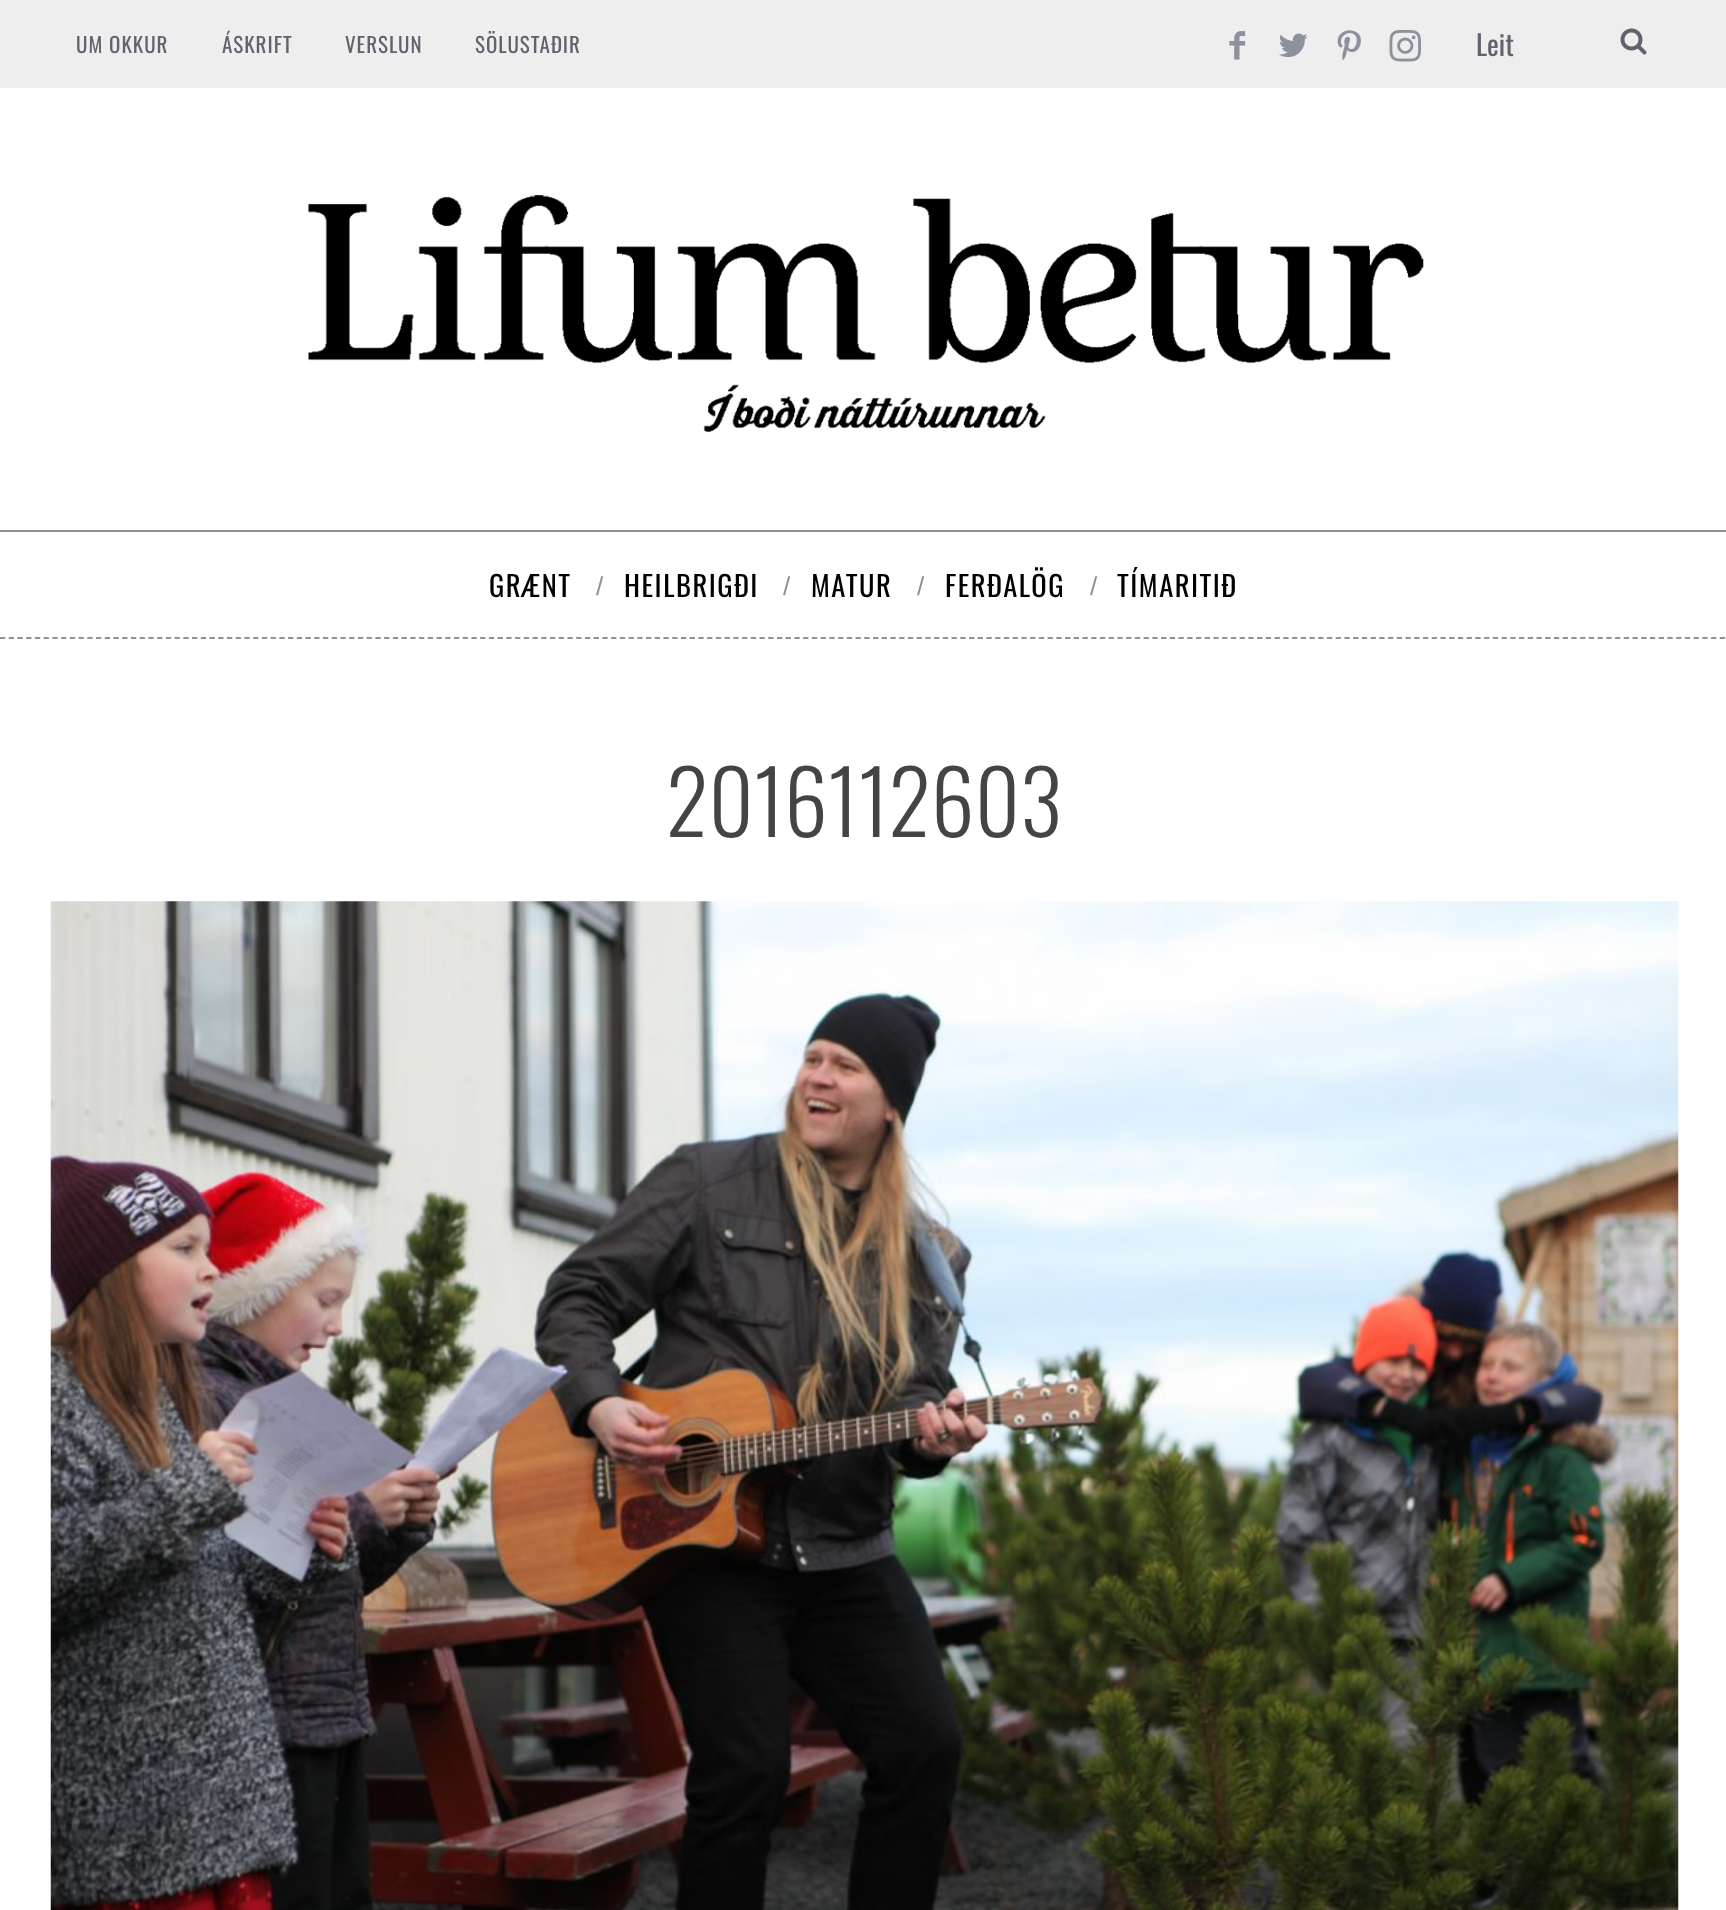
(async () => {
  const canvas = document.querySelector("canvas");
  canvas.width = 1726;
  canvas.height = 1910;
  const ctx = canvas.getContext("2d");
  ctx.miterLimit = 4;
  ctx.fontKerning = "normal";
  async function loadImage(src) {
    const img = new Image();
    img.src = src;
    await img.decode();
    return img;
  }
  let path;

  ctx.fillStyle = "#ffffff";
  ctx.fillRect(0, 0, 1726, 1910);
  ctx.fillStyle = "#eeeeee";
  ctx.fillRect(0, 0, 1726, 88);
  ctx.drawImage(await loadImage("img/1.png"), 1229, 31, 17, 29);
  ctx.drawImage(await loadImage("img/2.png"), 1279, 33, 29, 25);
  ctx.drawImage(await loadImage("img/3.png"), 1337, 30, 24, 31);
  ctx.drawImage(await loadImage("img/4.png"), 1389, 30, 32, 32);
  ctx.drawImage(await loadImage("img/5.png"), 1620, 28, 27, 27);
  ctx.drawImage(await loadImage("img/6.png"), 308, 195, 1116, 237);
  ctx.fillStyle = "#8c919b";
  ctx.fillRect(0, 530, 1726, 2);
  path = new Path2D("M0 638H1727");
  ctx.strokeStyle = "#8c919b";
  ctx.lineWidth = 1.8;
  ctx.setLineDash([5.25, 3.48]);
  ctx.stroke(path);
  ctx.drawImage(await loadImage("img/7.png"), 50, 901, 1629, 1009);
  ctx.letterSpacing = "1px";
  ctx.font = "21px Oswald";
  ctx.fillStyle = "#60626d";
  for (const [text, x, y] of [
    ["UM OKKUR", 76, 53],
    ["ÁSKRIFT", 222, 53],
    ["VERSLUN", 345, 53],
    ["SÖLUSTAÐIR", 475, 53],
  ]) {
    ctx.fillText(text, x, y);
  }
  ctx.letterSpacing = "0px";
  ctx.font = "28px Oswald";
  ctx.fillText("Leit", 1476, 56);
  ctx.letterSpacing = "1.5px";
  ctx.font = "28.5px Oswald";
  ctx.fillStyle = "#000000";
  ctx.fillText("GRÆNT", 489, 597);
  ctx.font = "26px Liberation Sans";
  ctx.fillStyle = "#8c919b";
  ctx.fillText("/", 596, 595);
  ctx.font = "28.5px Oswald";
  ctx.fillStyle = "#000000";
  ctx.fillText("HEILBRIGÐI", 624, 597);
  ctx.font = "26px Liberation Sans";
  ctx.fillStyle = "#8c919b";
  ctx.fillText("/", 783, 595);
  ctx.font = "28.5px Oswald";
  ctx.fillStyle = "#000000";
  ctx.fillText("MATUR", 811, 597);
  ctx.font = "26px Liberation Sans";
  ctx.fillStyle = "#8c919b";
  ctx.fillText("/", 917, 595);
  ctx.font = "28.5px Oswald";
  ctx.fillStyle = "#000000";
  ctx.fillText("FERÐALÖG", 945, 597);
  ctx.font = "26px Liberation Sans";
  ctx.fillStyle = "#8c919b";
  ctx.fillText("/", 1090, 595);
  ctx.font = "28.5px Oswald";
  ctx.fillStyle = "#000000";
  ctx.fillText("TÍMARITIÐ", 1117, 597);
  ctx.letterSpacing = "0px";
  ctx.font = "300 87.5px Oswald";
  ctx.fillStyle = "#444444";
  ctx.fillText("2016112603", 666, 837);
})();
